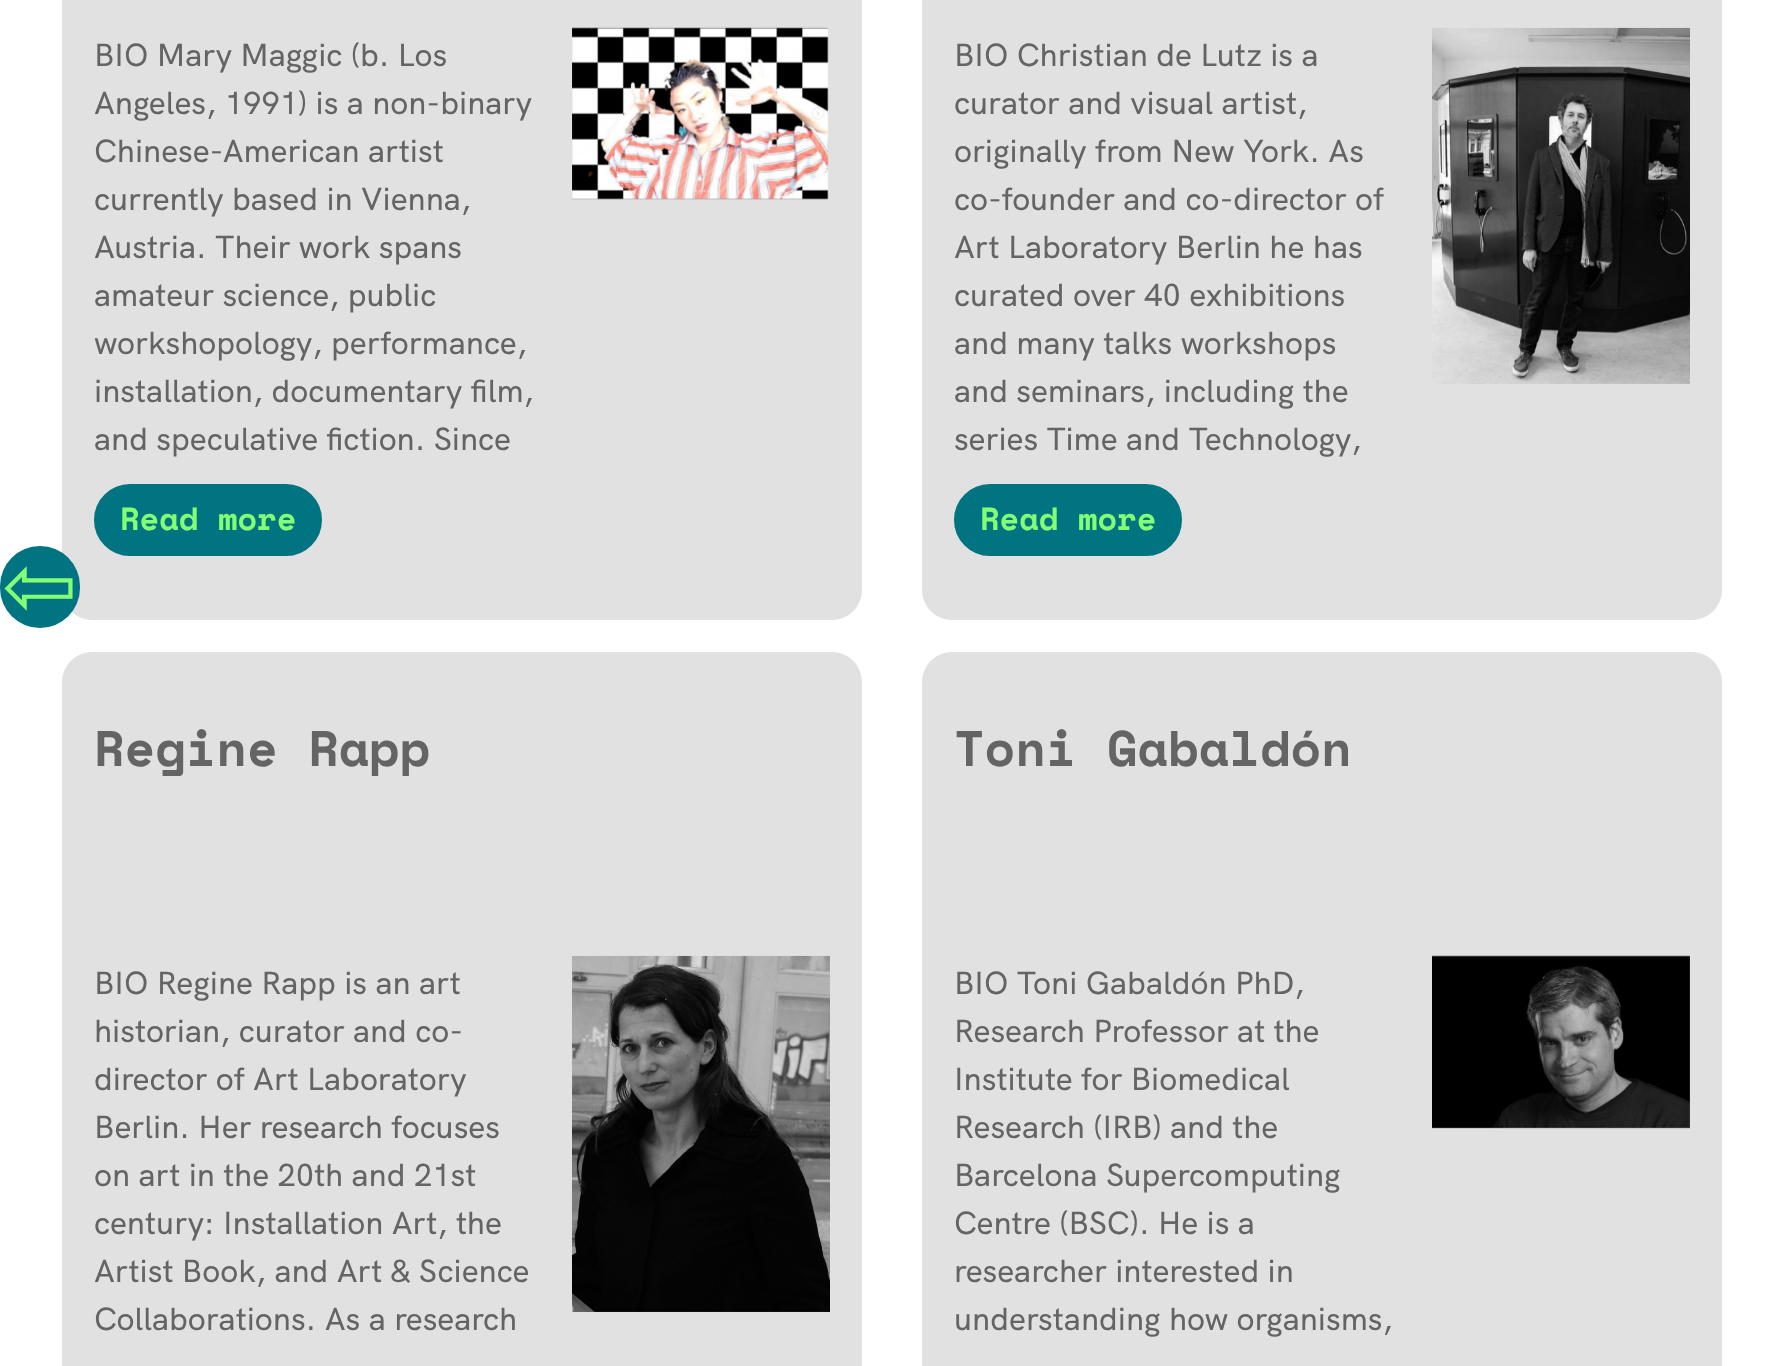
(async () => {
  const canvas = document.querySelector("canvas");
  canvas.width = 1784;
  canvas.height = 1366;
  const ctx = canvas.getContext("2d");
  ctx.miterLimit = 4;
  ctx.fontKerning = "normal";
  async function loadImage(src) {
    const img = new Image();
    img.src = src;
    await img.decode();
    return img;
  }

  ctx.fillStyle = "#ffffff";
  ctx.fillRect(0, 0, 1784, 1366);
  ctx.fillStyle = "#e1e1e1";
  ctx.beginPath();
  ctx.roundRect(62, -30, 800, 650, 30);
  ctx.fill();
  ctx.fillStyle = "#007481";
  ctx.beginPath();
  ctx.roundRect(0, 546, 80, 82, 40);
  ctx.fill();
  ctx.beginPath();
  ctx.roundRect(96, 486, 224, 68, 34);
  ctx.fill();
  ctx.strokeStyle = "#007481";
  ctx.lineWidth = 4;
  ctx.stroke();
  ctx.drawImage(await loadImage("img/1.png"), 572, 27, 257, 173);
  ctx.fillStyle = "#e1e1e1";
  ctx.beginPath();
  ctx.roundRect(922, -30, 800, 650, 30);
  ctx.fill();
  ctx.fillStyle = "#007481";
  ctx.beginPath();
  ctx.roundRect(956, 486, 224, 68, 34);
  ctx.fill();
  ctx.stroke();
  ctx.drawImage(await loadImage("img/2.png"), 1432, 27, 258, 357);
  ctx.fillStyle = "#e1e1e1";
  ctx.beginPath();
  ctx.roundRect(62, 652, 800, 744, 30);
  ctx.fill();
  ctx.drawImage(await loadImage("img/3.png"), 572, 955, 258, 357);
  ctx.beginPath();
  ctx.roundRect(922, 652, 800, 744, 30);
  ctx.fill();
  ctx.drawImage(await loadImage("img/4.png"), 1432, 955, 258, 174);
  ctx.font = "122px DejaVu Sans Mono";
  ctx.fillStyle = "#83ff74";
  ctx.fillText("⇦", 3, 622);
  ctx.font = "500 32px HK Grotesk";
  ctx.fillStyle = "#646464";
  for (const [text, x, y] of [
    ["BIO Mary Maggic (b. Los", 94, 66],
    ["Angeles, 1991) is a non-binary", 94, 114],
    ["Chinese-American artist", 94, 162],
    ["currently based in Vienna,", 94, 210],
    ["Austria. Their work spans", 94, 258],
    ["amateur science, public", 94, 306],
    ["workshopology, performance,", 94, 354],
    ["installation, documentary film,", 94, 402],
    ["and speculative fiction. Since", 94, 450],
  ]) {
    ctx.fillText(text, x, y);
  }
  ctx.font = "bold 32px Space Mono";
  ctx.fillStyle = "#83ff74";
  ctx.fillText("Read more", 120, 530);
  ctx.font = "500 32px HK Grotesk";
  ctx.fillStyle = "#646464";
  for (const [text, x, y] of [
    ["BIO Christian de Lutz is a", 954, 66],
    ["curator and visual artist,", 954, 114],
    ["originally from New York. As", 954, 162],
    ["co-founder and co-director of", 954, 210],
    ["Art Laboratory Berlin he has", 954, 258],
    ["curated over 40 exhibitions", 954, 306],
    ["and many talks workshops", 954, 354],
    ["and seminars, including the", 954, 402],
    ["series Time and Technology,", 954, 450],
  ]) {
    ctx.fillText(text, x, y);
  }
  ctx.font = "bold 32px Space Mono";
  ctx.fillStyle = "#83ff74";
  ctx.fillText("Read more", 980, 530);
  ctx.font = "bold 50px Space Mono";
  ctx.fillStyle = "#646464";
  ctx.fillText("Regine Rapp", 94, 766);
  ctx.font = "500 32px HK Grotesk";
  for (const [text, x, y] of [
    ["BIO Regine Rapp is an art", 94, 994],
    ["historian, curator and co-", 94, 1042],
    ["director of Art Laboratory", 94, 1090],
    ["Berlin. Her research focuses", 94, 1138],
    ["on art in the 20th and 21st", 94, 1186],
    ["century: Installation Art, the", 94, 1234],
    ["Artist Book, and Art & Science", 94, 1282],
    ["Collaborations. As a research", 94, 1330],
  ]) {
    ctx.fillText(text, x, y);
  }
  ctx.font = "bold 50px Space Mono";
  ctx.fillText("Toni Gabaldón", 954, 766);
  ctx.font = "500 32px HK Grotesk";
  for (const [text, x, y] of [
    ["BIO Toni Gabaldón PhD,", 954, 994],
    ["Research Professor at the", 954, 1042],
    ["Institute for Biomedical", 954, 1090],
    ["Research (IRB) and the", 954, 1138],
    ["Barcelona Supercomputing", 954, 1186],
    ["Centre (BSC). He is a", 954, 1234],
    ["researcher interested in", 954, 1282],
    ["understanding how organisms,", 954, 1330],
  ]) {
    ctx.fillText(text, x, y);
  }
})();
